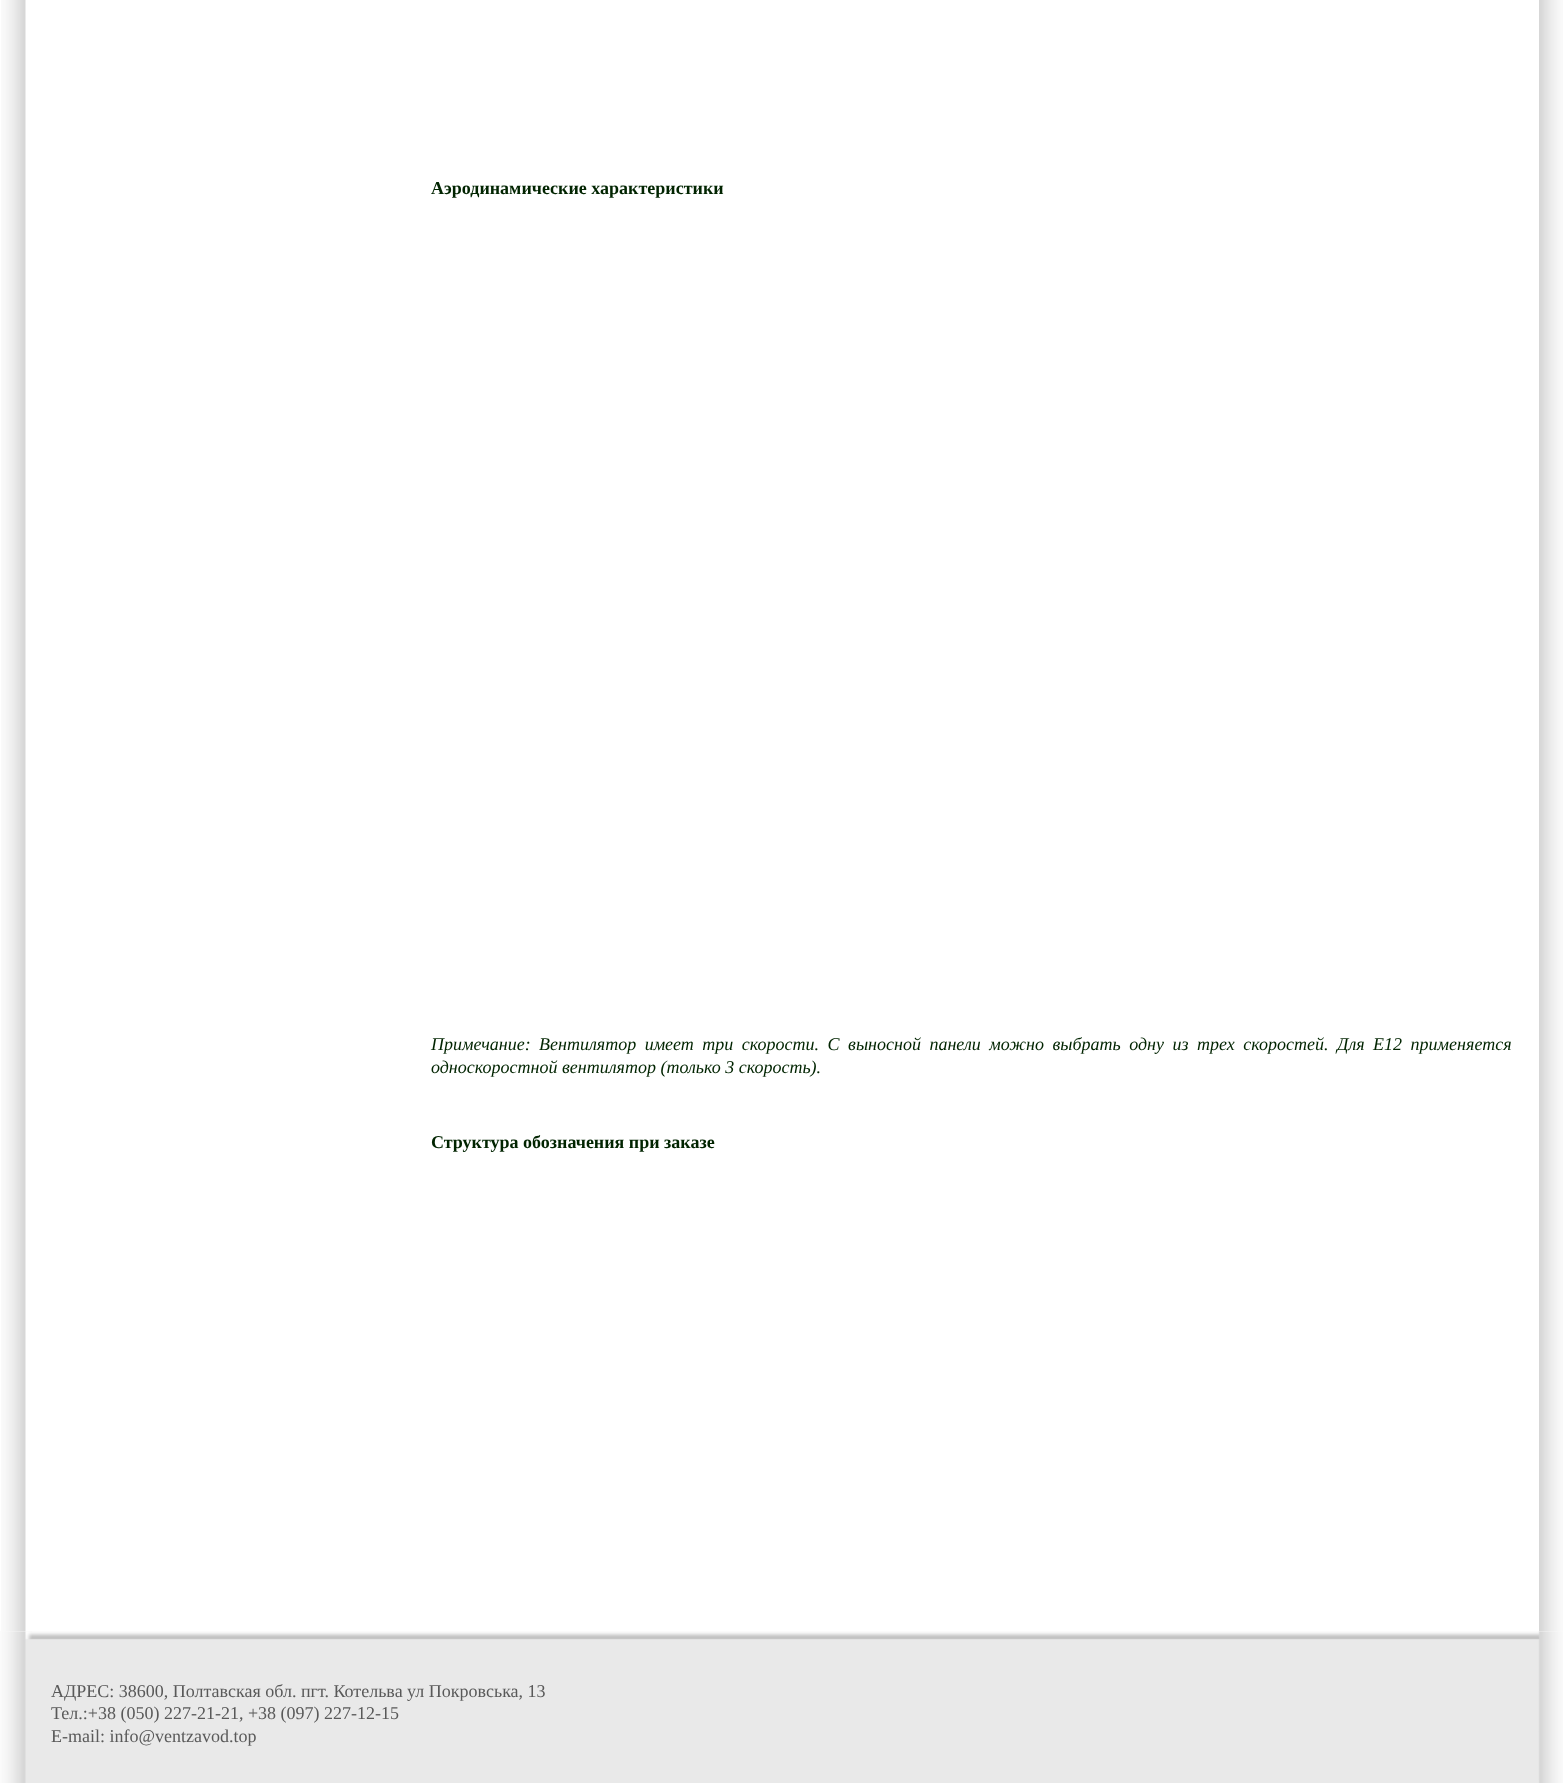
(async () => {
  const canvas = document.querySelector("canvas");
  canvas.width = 1563;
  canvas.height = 1783;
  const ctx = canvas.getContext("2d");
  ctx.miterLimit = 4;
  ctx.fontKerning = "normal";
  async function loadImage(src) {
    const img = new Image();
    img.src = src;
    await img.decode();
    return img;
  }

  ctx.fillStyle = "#ffffff";
  ctx.fillRect(0, 0, 1563, 1783);
  ctx.drawImage(await loadImage("img/1.png"), 1, 0, 25, 1632);
  ctx.drawImage(await loadImage("img/2.png"), 1539, 0, 24, 1632);
  ctx.drawImage(await loadImage("img/3.png"), 0, 1631, 1563, 152);
  ctx.drawImage(await loadImage("img/4.png"), 0, 1631, 32, 152);
  ctx.drawImage(await loadImage("img/5.png"), 1538, 1631, 25, 152);
  ctx.font = "bold 18px Liberation Serif";
  ctx.fillStyle = "#012400";
  ctx.fillText("Аэродинамические характеристики", 431, 194);
  ctx.font = "italic 18px Liberation Serif";
  ctx.fillText("Примечание:", 431, 1050);
  ctx.wordSpacing = "4px";
  ctx.fillText("Вентилятор имеет три скорости. С выносной панели можно выбрать одну из трех скоростей. Для Е12 применяется", 539, 1050);
  ctx.wordSpacing = "0px";
  ctx.fillText("односкоростной вентилятор (только 3 скорость).", 431, 1073);
  ctx.font = "bold 18px Liberation Serif";
  ctx.fillText("Структура обозначения при заказе", 431, 1148);
  ctx.font = "18px Liberation Serif";
  ctx.fillStyle = "#595959";
  for (const [text, x, y] of [
    ["АДРЕС: 38600, Полтавская обл. пгт. Котельва ул Покровська, 13", 51, 1697],
    ["Тел.:+38 (050) 227-21-21, +38 (097) 227-12-15", 51, 1719],
    ["E-mail: info@ventzavod.top", 51, 1742],
  ]) {
    ctx.fillText(text, x, y);
  }
})();
